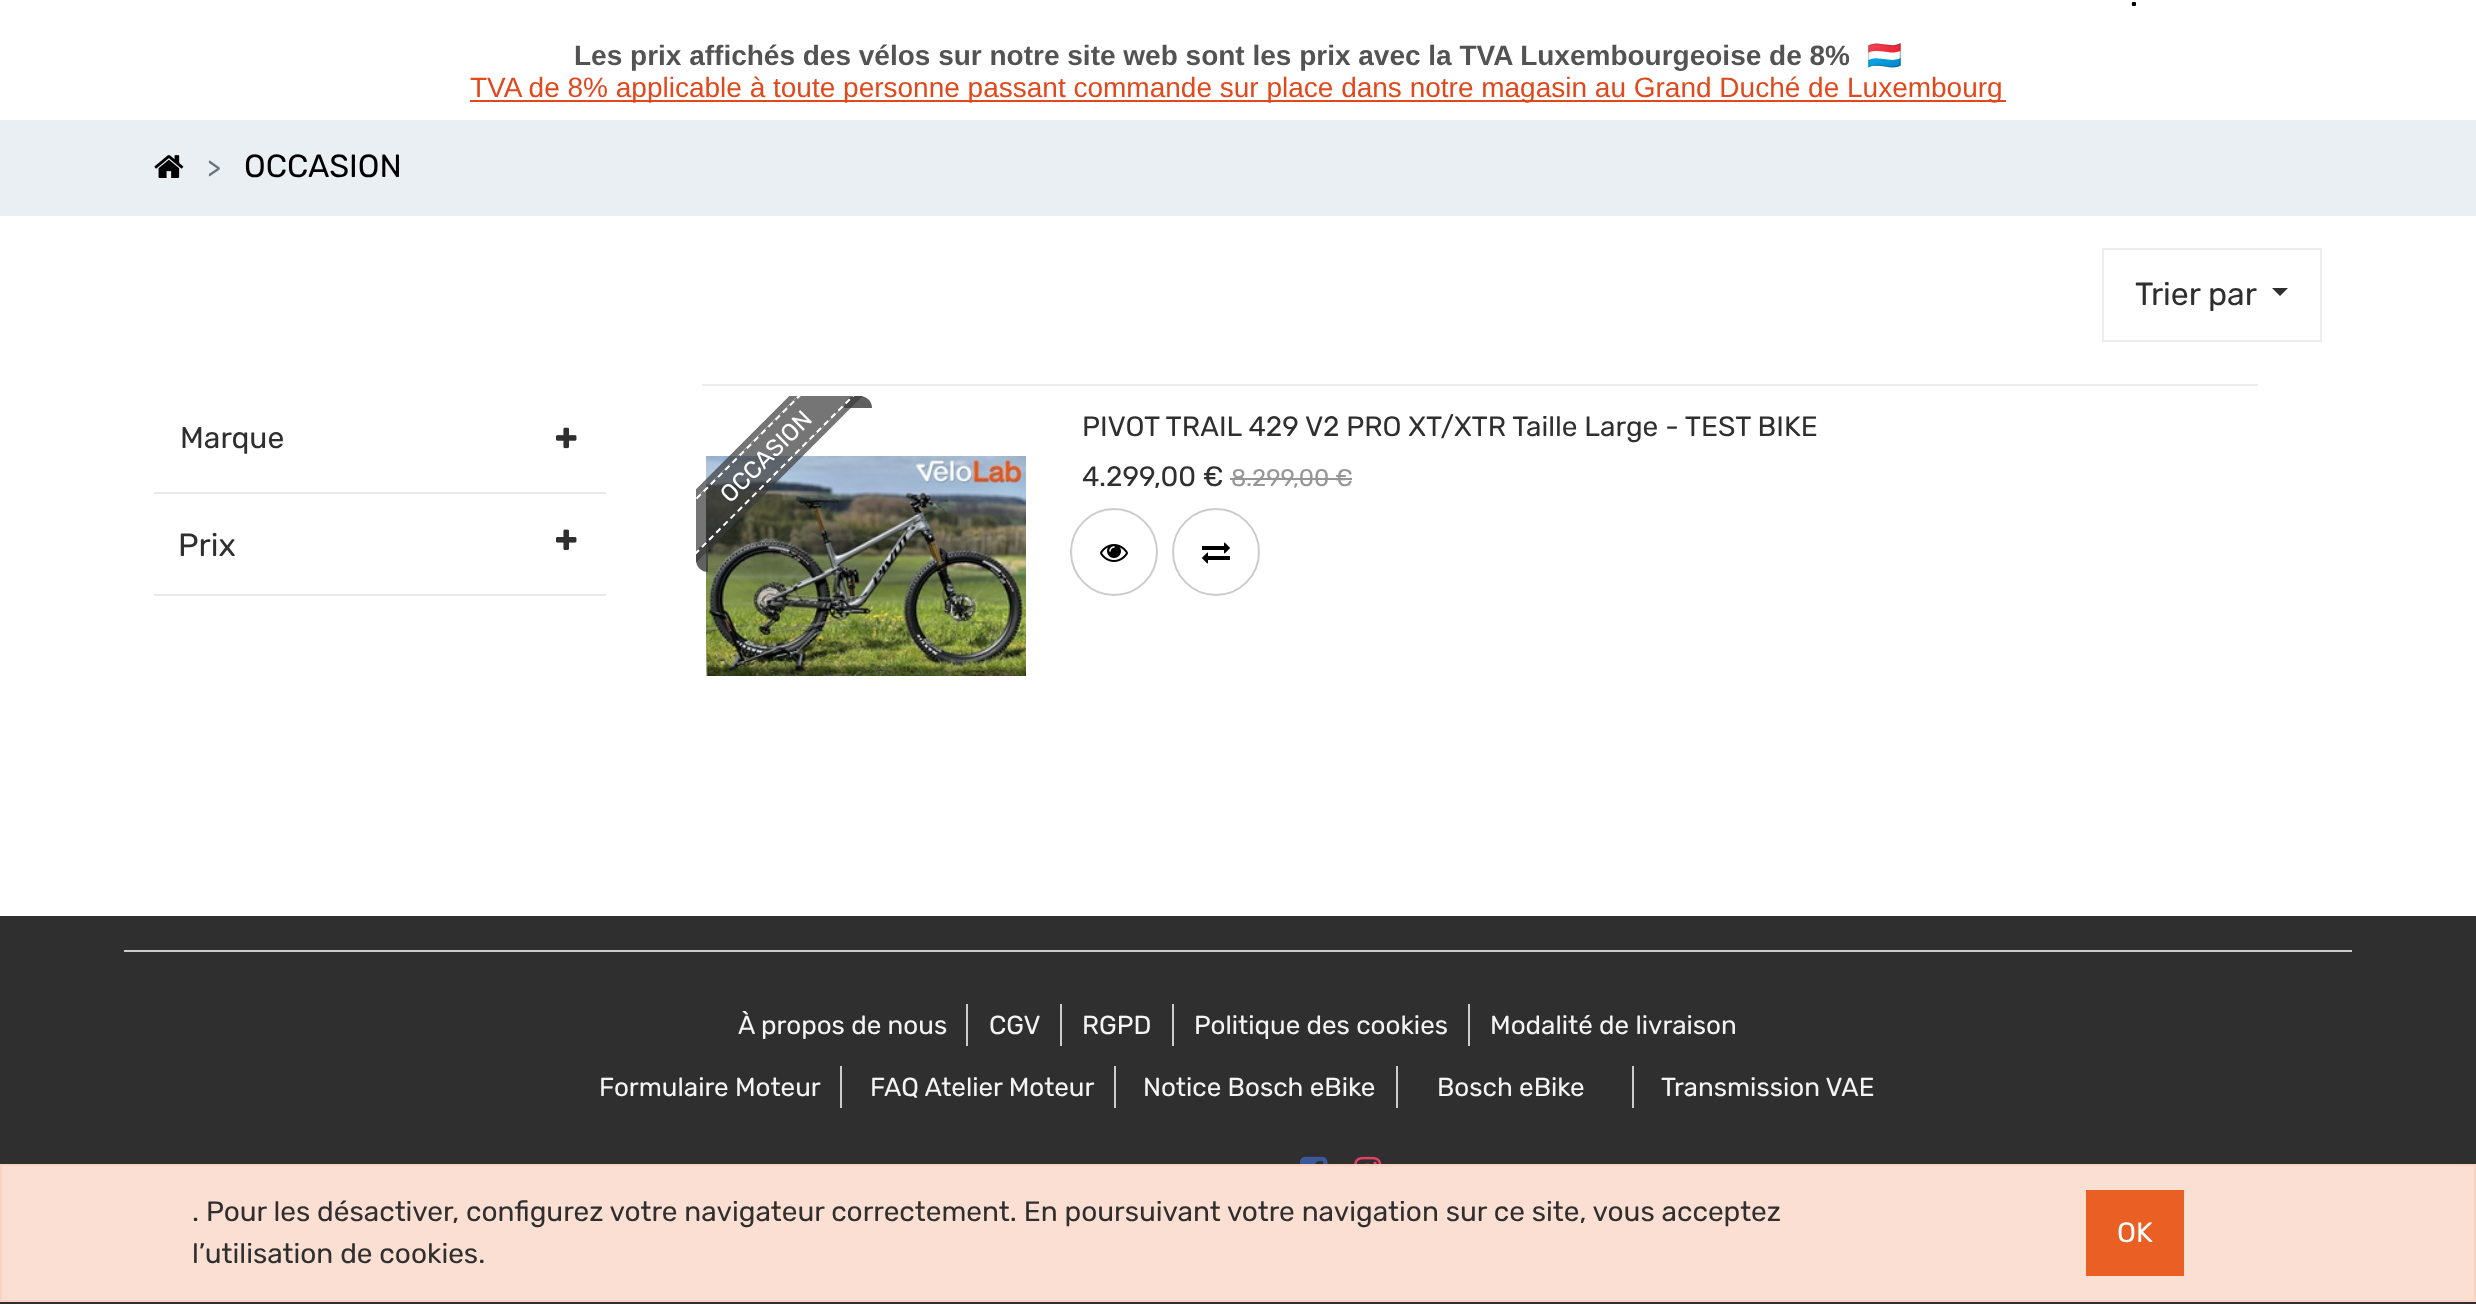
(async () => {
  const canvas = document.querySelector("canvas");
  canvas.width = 2476;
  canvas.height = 1304;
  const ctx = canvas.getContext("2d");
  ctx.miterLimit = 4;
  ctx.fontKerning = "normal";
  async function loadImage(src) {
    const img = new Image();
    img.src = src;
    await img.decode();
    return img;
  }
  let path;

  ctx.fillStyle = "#ffffff";
  ctx.fillRect(0, 0, 2476, 1304);
  ctx.fillStyle = "#e1481c";
  ctx.fillRect(470, 100, 1536, 2);
  ctx.fillStyle = "#eaeff3";
  ctx.fillRect(0, 120, 2476, 96);
  ctx.drawImage(await loadImage("img/1.png"), 154, 155, 30, 23);
  ctx.strokeStyle = "#ededed";
  ctx.lineWidth = 2;
  ctx.strokeRect(2103, 249, 218, 92);
  ctx.fillStyle = "#302f2f";
  path = new Path2D("M2272 288H2288L2280 296Z");
  ctx.fill(path);
  ctx.fillStyle = "#eaeaea";
  ctx.fillRect(154, 492, 452, 2);
  ctx.drawImage(await loadImage("img/2.png"), 556, 427, 21, 22);
  ctx.fillRect(154, 594, 452, 2);
  ctx.drawImage(await loadImage("img/3.png"), 556, 529, 21, 21);
  ctx.fillStyle = "#ededed";
  ctx.fillRect(702, 384, 1556, 2);
  ctx.fillStyle = "#616161";
  ctx.beginPath();
  ctx.roundRect(844, 396, 28, 12, [12, 12, 0, 0]);
  ctx.fill();
  ctx.drawImage(await loadImage("img/4.png"), 706, 456, 320, 220);
  ctx.fillStyle = "rgba(58, 58, 58, 0.8)";
  ctx.beginPath();
  ctx.roundRect(696, 544, 12, 28, [12, 0, 0, 12]);
  ctx.fill();
  ctx.save();
  ctx.beginPath();
  ctx.rect(696, 396, 200, 200);
  ctx.clip();
  path = new Path2D("M655.5 534L843.5 346L876 378.5L688 566.5Z");
  ctx.strokeStyle = "rgba(58, 58, 58, 0.7)";
  ctx.lineWidth = 6;
  ctx.stroke(path);
  ctx.fillStyle = "rgba(58, 58, 58, 0.7)";
  path = new Path2D("M660 534L844 350L872 378L688 562Z");
  ctx.fill(path);
  path = new Path2D("M660.5 534.5L844.5 351");
  ctx.strokeStyle = "#ffffff";
  ctx.lineWidth = 2;
  ctx.setLineDash([6, 4.16]);
  ctx.stroke(path);
  path = new Path2D("M687.5 561.5L871.5 377.5");
  ctx.stroke(path);
  ctx.restore();
  ctx.fillStyle = "#969696";
  ctx.fillRect(1230, 478, 122, 2);
  ctx.beginPath();
  ctx.arc(1114, 552, 43, 0, Math.PI * 2);
  ctx.strokeStyle = "#cccccc";
  ctx.stroke();
  ctx.drawImage(await loadImage("img/5.png"), 1100, 544, 28, 18);
  ctx.beginPath();
  ctx.arc(1216, 552, 43, 0, Math.PI * 2);
  ctx.stroke();
  ctx.drawImage(await loadImage("img/6.png"), 1202, 542, 28, 22);
  for (const [x, y, w, h, color] of [
    [0, 916, 2476, 388, "#302f2f"],
    [124, 950, 2228, 2, "#cccccc"],
    [966, 1004, 2, 42, "#cccccc"],
    [1060, 1004, 2, 42, "#cccccc"],
    [1172, 1004, 2, 42, "#cccccc"],
    [1468, 1004, 2, 42, "#cccccc"],
    [840, 1066, 2, 42, "#cccccc"],
    [1114, 1066, 2, 42, "#cccccc"],
    [1396, 1066, 2, 42, "#cccccc"],
    [1632, 1066, 2, 42, "#cccccc"],
  ]) {
    ctx.fillStyle = color;
    ctx.fillRect(x, y, w, h);
  }
  ctx.drawImage(await loadImage("img/7.png"), 1300, 1156, 28, 8);
  ctx.drawImage(await loadImage("img/8.png"), 1354, 1156, 28, 8);
  ctx.fillStyle = "#fbdfd3";
  ctx.beginPath();
  ctx.rect(1, 1165, 2474, 136);
  ctx.fill();
  ctx.strokeStyle = "#f9d2c2";
  ctx.stroke();
  ctx.fillStyle = "#e95f24";
  ctx.fillRect(2086, 1190, 98, 86);
  ctx.font = "bold 28px Rubik";
  ctx.fillStyle = "#000000";
  ctx.fillText(".", 2130, 6);
  ctx.font = "bold 28px Liberation Sans";
  ctx.fillStyle = "#535353";
  ctx.fillText("Les prix affichés des vélos sur notre site web sont les prix avec la TVA Luxembourgeoise de 8%", 574, 65);
  ctx.font = "28px Noto Color Emoji";
  ctx.fillStyle = "#242323";
  ctx.fillText("🇱🇺", 1867, 65);
  ctx.font = "28px Liberation Sans";
  ctx.fillStyle = "#e1481c";
  ctx.fillText("TVA de 8% applicable à toute personne passant commande sur place dans notre magasin au Grand Duché de Luxembourg", 470, 97);
  ctx.font = "300 28px Rubik";
  ctx.fillStyle = "#6c757d";
  ctx.fillText(">", 207, 177);
  ctx.font = "300 32px Rubik";
  ctx.fillStyle = "#000000";
  ctx.fillText("OCCASION", 244, 177);
  ctx.fillStyle = "#302f2f";
  ctx.fillText("Trier par", 2135, 305);
  ctx.font = "300 30px Rubik";
  ctx.fillText("Marque", 180, 448);
  ctx.font = "300 32px Rubik";
  ctx.fillText("Prix", 178, 556);
  ctx.font = "300 24px Rubik";
  ctx.fillStyle = "#ffffff";
  ctx.save();
  ctx.translate(730, 504);
  ctx.rotate(-45 * Math.PI / 180);
  ctx.fillText("OCCASION", 0, 0);
  ctx.restore();
  ctx.font = "300 28px Rubik";
  ctx.fillStyle = "#302f2f";
  ctx.fillText("PIVOT TRAIL 429 V2 PRO XT/XTR Taille Large - TEST BIKE", 1082, 436);
  ctx.fillText("4.299,00 €", 1082, 486);
  ctx.font = "300 24px Rubik";
  ctx.fillStyle = "#969696";
  ctx.fillText("8.299,00 €", 1231, 486);
  ctx.font = "300 26px Rubik";
  ctx.fillStyle = "#f4f4f4";
  for (const [text, x, y] of [
    ["À propos de nous", 738, 1034],
    ["CGV", 989, 1034],
    ["RGPD", 1082, 1034],
    ["Politique des cookies", 1194, 1034],
    ["Modalité de livraison", 1490, 1034],
    ["Formulaire Moteur", 599, 1096],
    ["FAQ Atelier Moteur", 870, 1096],
    ["Notice Bosch eBike", 1143, 1096],
    ["Bosch eBike", 1437, 1096],
    ["Transmission VAE", 1661, 1096],
  ]) {
    ctx.fillText(text, x, y);
  }
  ctx.font = "300 28px Rubik";
  ctx.fillStyle = "#302f2f";
  ctx.fillText(". Pour les désactiver, configurez votre navigateur correctement. En poursuivant votre navigation sur ce site, vous acceptez", 192, 1221);
  ctx.fillText("l’utilisation de cookies.", 192, 1263);
  ctx.fillStyle = "#ffffff";
  ctx.fillText("OK", 2117, 1242);
})();
